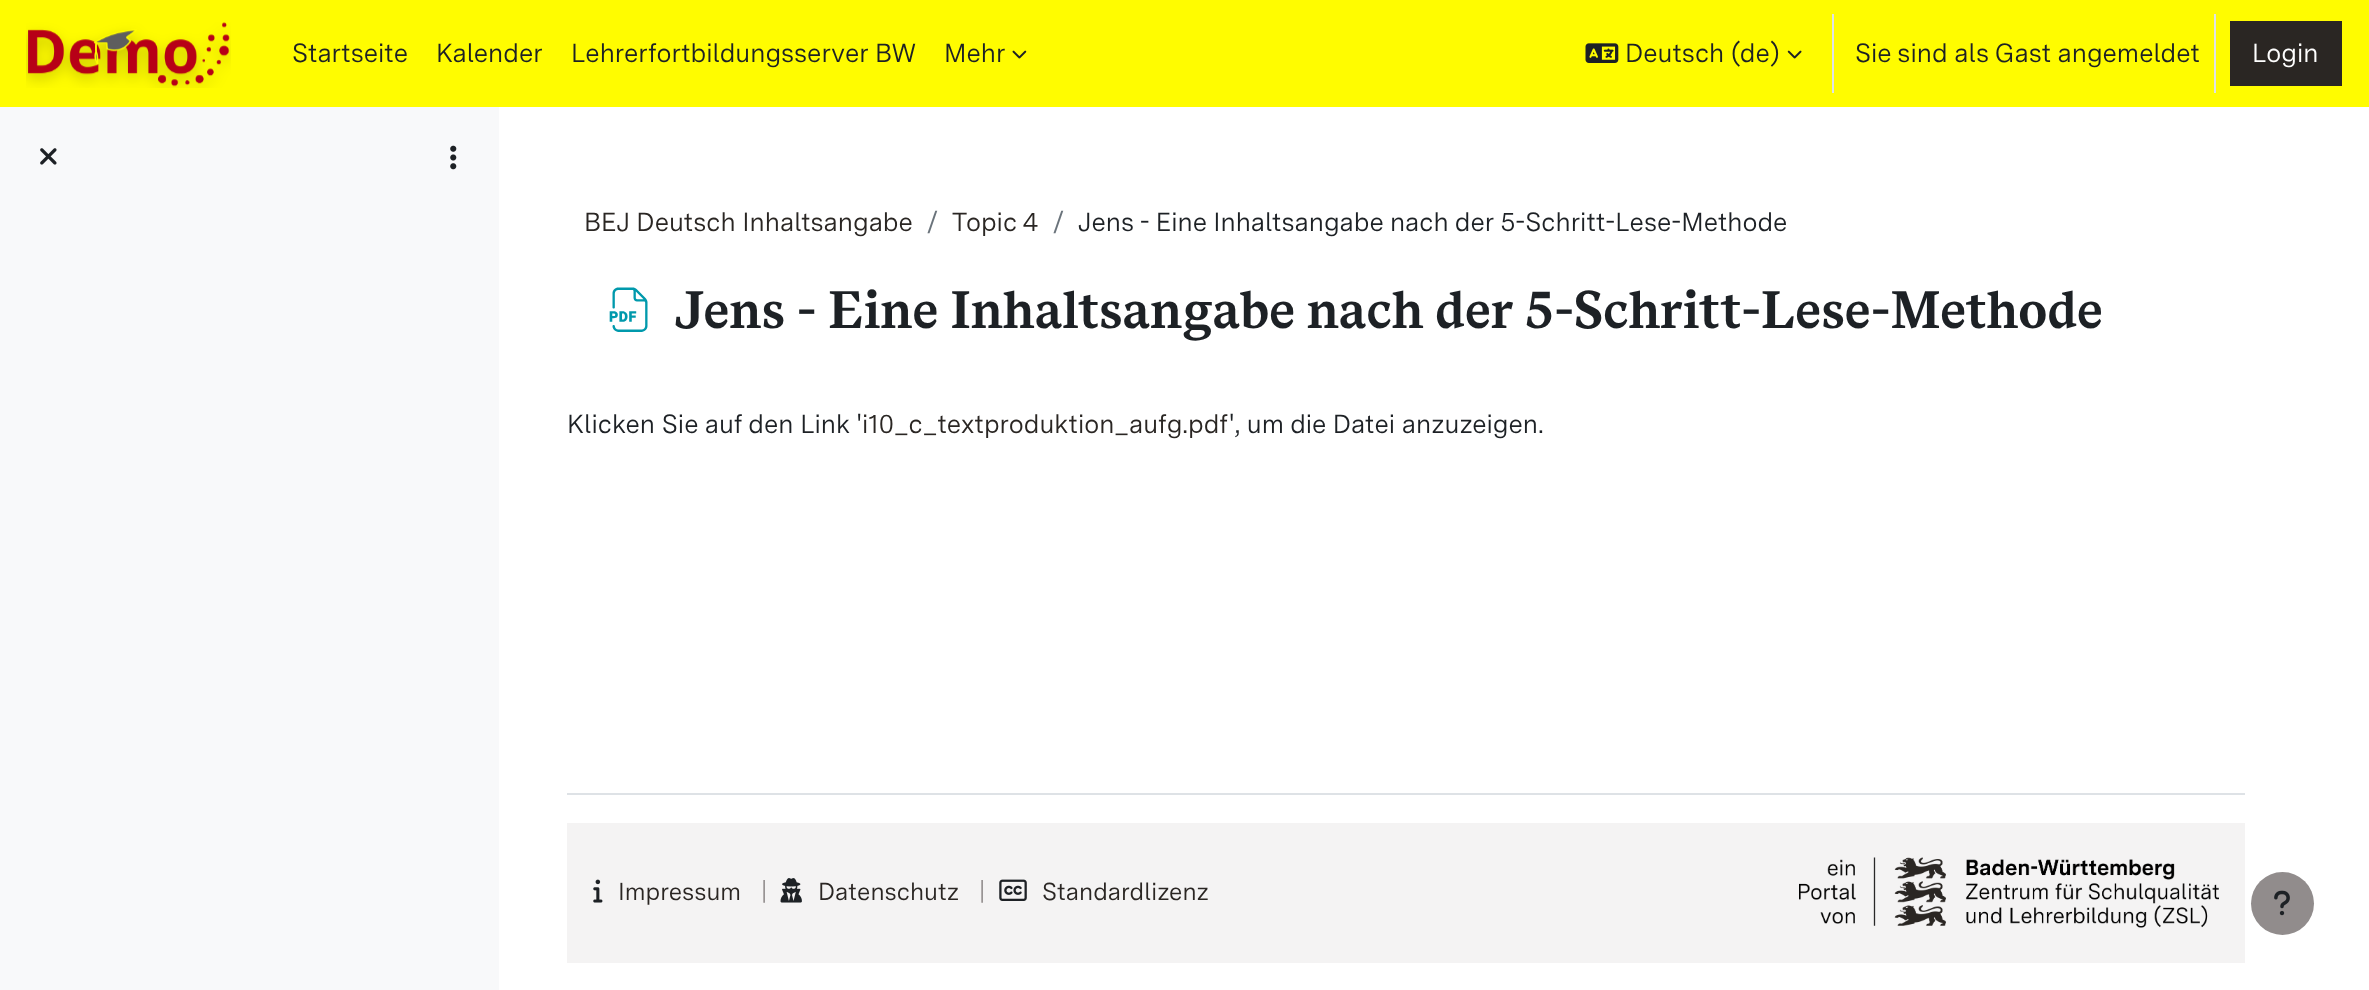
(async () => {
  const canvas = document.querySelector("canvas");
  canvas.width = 2369;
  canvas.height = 990;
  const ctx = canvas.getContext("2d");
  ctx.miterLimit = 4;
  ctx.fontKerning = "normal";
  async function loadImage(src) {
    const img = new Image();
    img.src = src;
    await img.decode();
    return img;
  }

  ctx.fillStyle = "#ffffff";
  ctx.fillRect(0, 0, 2369, 990);
  ctx.fillStyle = "#fffc00";
  ctx.fillRect(0, 0, 2369, 107);
  ctx.drawImage(await loadImage("img/1.png"), 26, 22, 205, 66);
  ctx.drawImage(await loadImage("img/2.png"), 1012, 50, 15, 9);
  ctx.drawImage(await loadImage("img/3.png"), 1585, 43, 34, 20);
  ctx.drawImage(await loadImage("img/4.png"), 1787, 50, 15, 9);
  for (const [x, y, w, h, color] of [
    [1832, 14, 2, 79, "#dee2e6"],
    [2214, 14, 2, 79, "#dee2e6"],
    [2230, 21, 112, 65, "#2a2623"],
    [0, 107, 499, 883, "#f8f9fa"],
  ]) {
    ctx.fillStyle = color;
    ctx.fillRect(x, y, w, h);
  }
  ctx.drawImage(await loadImage("img/5.png"), 40, 148, 17, 17);
  ctx.drawImage(await loadImage("img/6.png"), 450, 145, 7, 25);
  ctx.drawImage(await loadImage("img/7.png"), 609, 287, 39, 45);
  ctx.fillStyle = "#dee2e6";
  ctx.fillRect(567, 793, 1678, 2);
  ctx.fillStyle = "#f4f3f3";
  ctx.fillRect(567, 823, 1678, 140);
  ctx.drawImage(await loadImage("img/8.png"), 593, 879, 10, 24);
  ctx.drawImage(await loadImage("img/9.png"), 780, 878, 22, 25);
  ctx.drawImage(await loadImage("img/10.png"), 999, 879, 28, 22);
  ctx.drawImage(await loadImage("img/11.png"), 1799, 857, 420, 71);
  ctx.fillStyle = "#918c8c";
  ctx.beginPath();
  ctx.arc(2282.5, 903.5, 31.5, 0, Math.PI * 2);
  ctx.fill();
  ctx.drawImage(await loadImage("img/12.png"), 2274, 890, 16, 26);
  ctx.font = "26.25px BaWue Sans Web";
  ctx.fillStyle = "#1d2125";
  for (const [text, x, y] of [
    ["Startseite", 292, 62],
    ["Kalender", 436, 62],
    ["Lehrerfortbildungsserver BW", 571, 62],
    ["Mehr", 944, 62],
    ["Deutsch (de)", 1625, 62],
    ["Sie sind als Gast angemeldet", 1855, 62],
  ]) {
    ctx.fillText(text, x, y);
  }
  ctx.fillStyle = "#ffffff";
  ctx.fillText("Login", 2252, 62);
  ctx.fillStyle = "#2a2623";
  ctx.fillText("BEJ Deutsch Inhaltsangabe", 584, 231);
  ctx.fillStyle = "#6a737b";
  ctx.fillText("/", 927, 231);
  ctx.fillStyle = "#2a2623";
  ctx.fillText("Topic 4", 952, 231);
  ctx.fillStyle = "#6a737b";
  ctx.fillText("/", 1053, 231);
  ctx.fillStyle = "#1d2125";
  ctx.fillText("Jens - Eine Inhaltsangabe nach der 5-Schritt-Lese-Methode", 1078, 231);
  ctx.font = "bold 52.5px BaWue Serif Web";
  ctx.fillText("Jens - Eine Inhaltsangabe nach der 5-Schritt-Lese-Methode", 675, 328);
  ctx.font = "26.25px BaWue Sans Web";
  ctx.fillText("Klicken Sie auf den Link '", 567, 433);
  ctx.fillStyle = "#2a2623";
  ctx.fillText("i10_c_textproduktion_aufg.pdf", 862, 433);
  ctx.fillStyle = "#1d2125";
  ctx.fillText("', um die Datei anzuzeigen.", 1229, 433);
  ctx.font = "24.5px BaWue Sans Web";
  ctx.fillStyle = "#2a2623";
  ctx.fillText("Impressum", 618, 900);
  ctx.fillStyle = "#918c8c";
  ctx.fillText("|", 761, 900);
  ctx.fillStyle = "#2a2623";
  ctx.fillText("Datenschutz", 818, 900);
  ctx.fillStyle = "#918c8c";
  ctx.fillText("|", 979, 900);
  ctx.fillStyle = "#2a2623";
  ctx.fillText("Standardlizenz", 1042, 900);
})();
